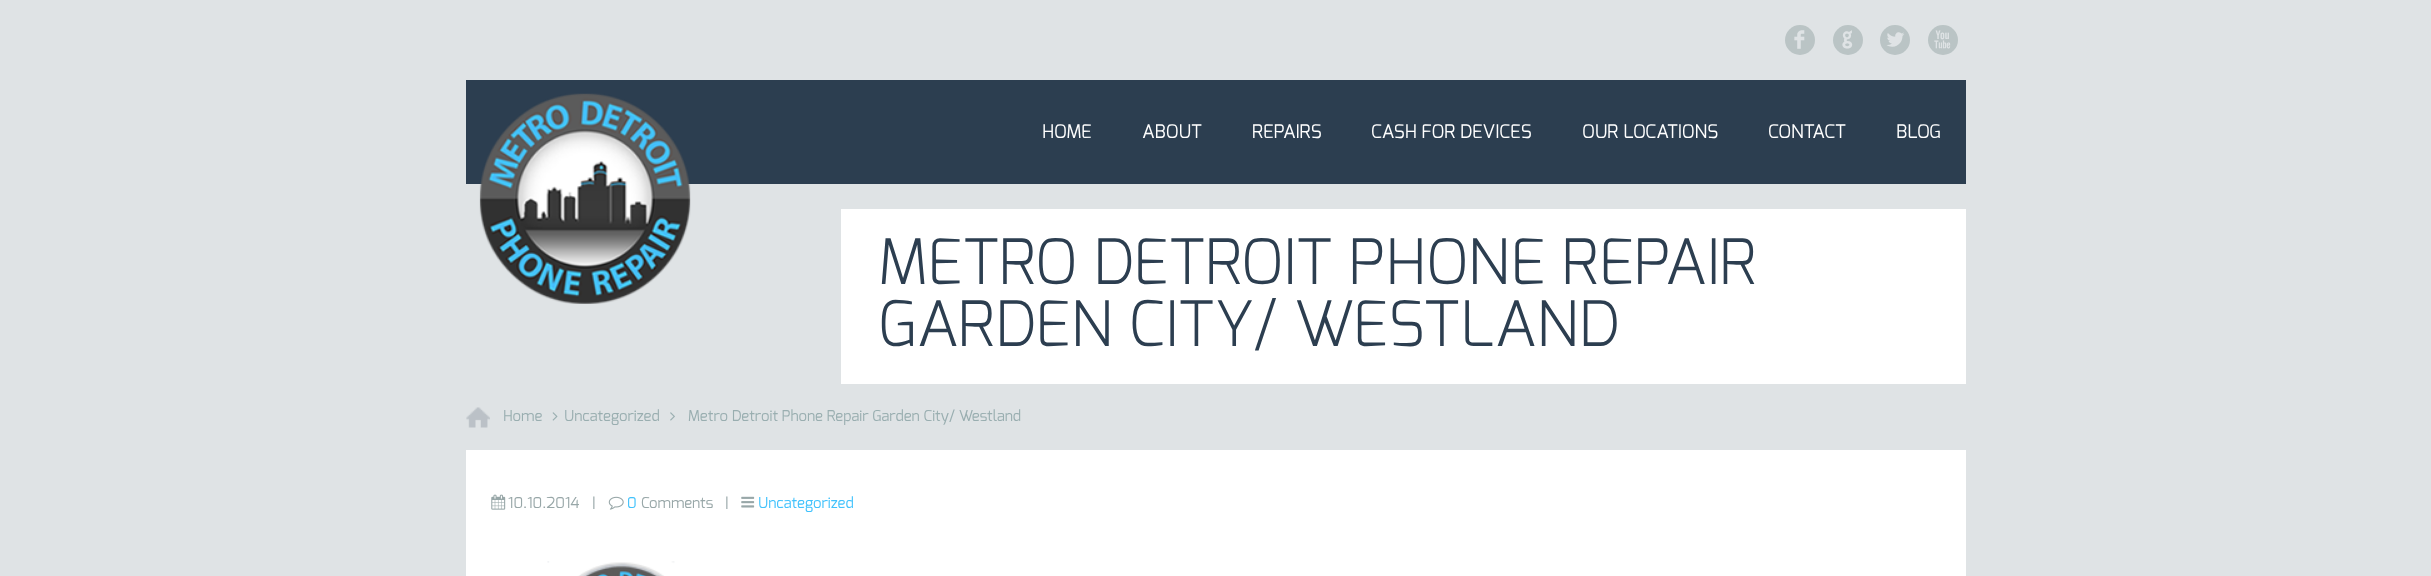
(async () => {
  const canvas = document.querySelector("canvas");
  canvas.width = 2431;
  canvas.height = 576;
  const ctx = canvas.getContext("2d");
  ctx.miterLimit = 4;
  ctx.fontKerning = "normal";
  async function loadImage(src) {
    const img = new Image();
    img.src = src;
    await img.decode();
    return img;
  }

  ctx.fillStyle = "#dfe3e5";
  ctx.fillRect(0, 0, 2431, 576);
  ctx.fillStyle = "#bac4c5";
  ctx.beginPath();
  ctx.arc(1800, 40, 15, 0, Math.PI * 2);
  ctx.fill();
  ctx.beginPath();
  ctx.arc(1848, 40, 15, 0, Math.PI * 2);
  ctx.fill();
  ctx.beginPath();
  ctx.arc(1895, 40, 15, 0, Math.PI * 2);
  ctx.fill();
  ctx.beginPath();
  ctx.arc(1943, 40, 15, 0, Math.PI * 2);
  ctx.fill();
  ctx.fillStyle = "#2c3e50";
  ctx.fillRect(466, 80, 1500, 104);
  ctx.drawImage(await loadImage("img/1.png"), 479, 93, 212, 211);
  ctx.fillStyle = "#ffffff";
  ctx.fillRect(841, 209, 1125, 175);
  ctx.drawImage(await loadImage("img/2.png"), 466, 407, 24, 21);
  ctx.drawImage(await loadImage("img/3.png"), 552, 412, 6, 9);
  ctx.drawImage(await loadImage("img/4.png"), 670, 412, 5, 9);
  ctx.fillRect(466, 450, 1500, 126);
  ctx.drawImage(await loadImage("img/5.png"), 491, 494, 15, 16);
  ctx.drawImage(await loadImage("img/6.png"), 608, 496, 16, 14);
  ctx.drawImage(await loadImage("img/7.png"), 741, 496, 14, 12);
  ctx.drawImage(await loadImage("img/8.png"), 547, 561, 128, 15);
  ctx.font = "30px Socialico";
  ctx.fillStyle = "#dfe3e5";
  for (const [text, x, y] of [
    ["F", 1793, 50],
    ["G", 1841, 50],
    ["L", 1883, 50],
    ["X", 1933, 50],
  ]) {
    ctx.fillText(text, x, y);
  }
  ctx.font = "18.75px Exo";
  ctx.fillStyle = "#ffffff";
  for (const [text, x, y] of [
    ["HOME", 1042, 138],
    ["ABOUT", 1142, 138],
    ["REPAIRS", 1252, 138],
    ["CASH FOR DEVICES", 1371, 138],
    ["OUR LOCATIONS", 1582, 138],
    ["CONTACT", 1768, 138],
    ["BLOG", 1896, 138],
  ]) {
    ctx.fillText(text, x, y);
  }
  ctx.font = "300 62.5px Exo";
  ctx.fillStyle = "#2c3e50";
  ctx.fillText("METRO DETROIT PHONE REPAIR", 878, 284);
  ctx.fillText("GARDEN CITY/ WESTLAND", 878, 346);
  ctx.font = "15px Exo";
  ctx.fillStyle = "#99aeb0";
  for (const [text, x, y] of [
    ["Home", 503, 421],
    ["Uncategorized", 564, 421],
    ["Metro Detroit Phone Repair Garden City/ Westland", 688, 421],
  ]) {
    ctx.fillText(text, x, y);
  }
  ctx.fillStyle = "#98a7a8";
  ctx.fillText("10.10.2014", 508, 508);
  ctx.fillText("|", 592, 508);
  ctx.fillStyle = "#41c2fc";
  ctx.fillText("0", 627, 508);
  ctx.fillStyle = "#98a7a8";
  ctx.fillText("Comments", 641, 508);
  ctx.fillText("|", 725, 508);
  ctx.fillStyle = "#41c2fc";
  ctx.fillText("Uncategorized", 758, 508);
})();
